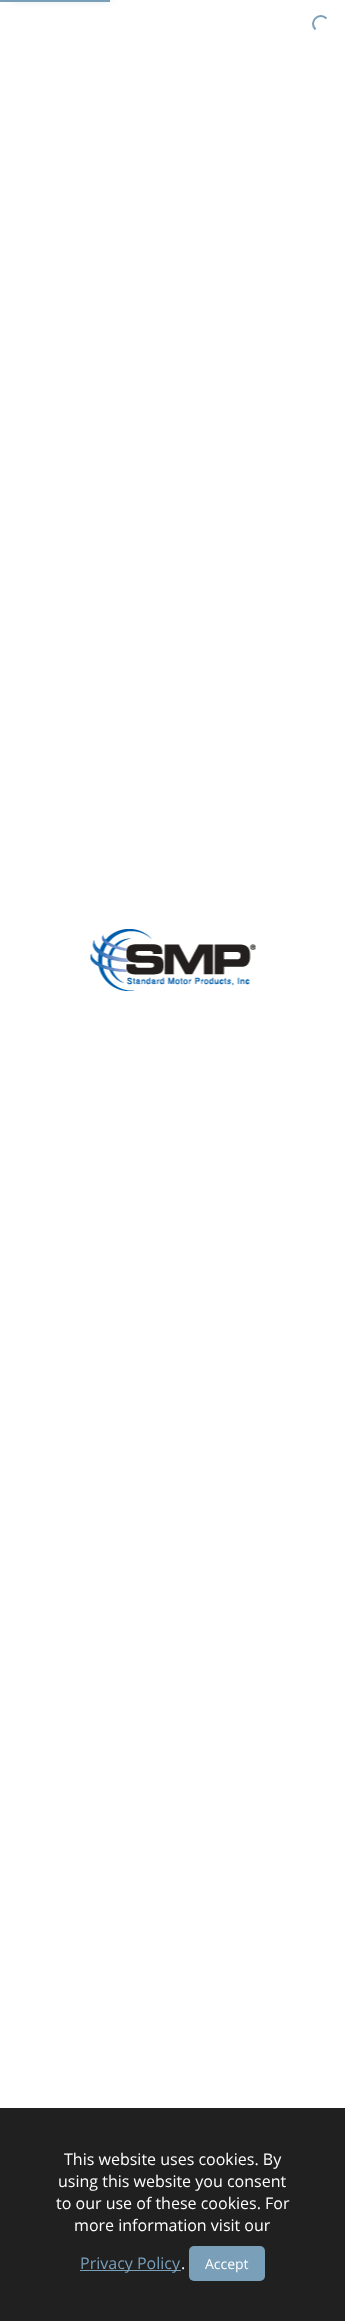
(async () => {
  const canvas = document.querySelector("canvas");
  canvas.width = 345;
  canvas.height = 2321;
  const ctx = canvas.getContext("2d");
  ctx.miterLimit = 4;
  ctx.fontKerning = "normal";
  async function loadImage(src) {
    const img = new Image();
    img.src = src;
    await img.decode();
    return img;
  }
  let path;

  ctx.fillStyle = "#ffffff";
  ctx.fillRect(0, 0, 345, 2321);
  ctx.fillStyle = "#7a9fb9";
  ctx.fillRect(0, 0, 110, 2);
  ctx.filter = "blur(5px)";
  ctx.beginPath();
  ctx.rect(11, -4, 100, 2);
  ctx.fill();
  ctx.filter = "none";
  path = new Path2D("M315.5 29.5C308 22 319 11 326.5 18.5");
  ctx.strokeStyle = "#7a9fb9";
  ctx.lineWidth = 2;
  ctx.stroke(path);
  ctx.drawImage(await loadImage("img/1.png"), 90, 929, 166, 62);
  ctx.fillStyle = "#202020";
  ctx.fillRect(0, 2108, 345, 213);
  ctx.fillStyle = "#7a9fb9";
  ctx.fillRect(80, 2270, 101, 1);
  ctx.beginPath();
  ctx.roundRect(189, 2246, 76, 35, 5);
  ctx.fill();
  ctx.font = "16px Open Sans";
  ctx.fillStyle = "#ffffff";
  for (const [text, x, y] of [
    ["This website uses cookies. By", 64, 2165],
    ["using this website you consent", 58, 2187],
    ["to our use of these cookies. For", 56, 2209],
    ["more information visit our", 74, 2231],
  ]) {
    ctx.fillText(text, x, y);
  }
  ctx.fillStyle = "#7a9fb9";
  ctx.fillText("Privacy Policy", 80, 2269);
  ctx.fillStyle = "#ffffff";
  ctx.fillText(".", 181, 2269);
  ctx.font = "14px Open Sans";
  ctx.fillText("Accept", 205, 2269);
})();
